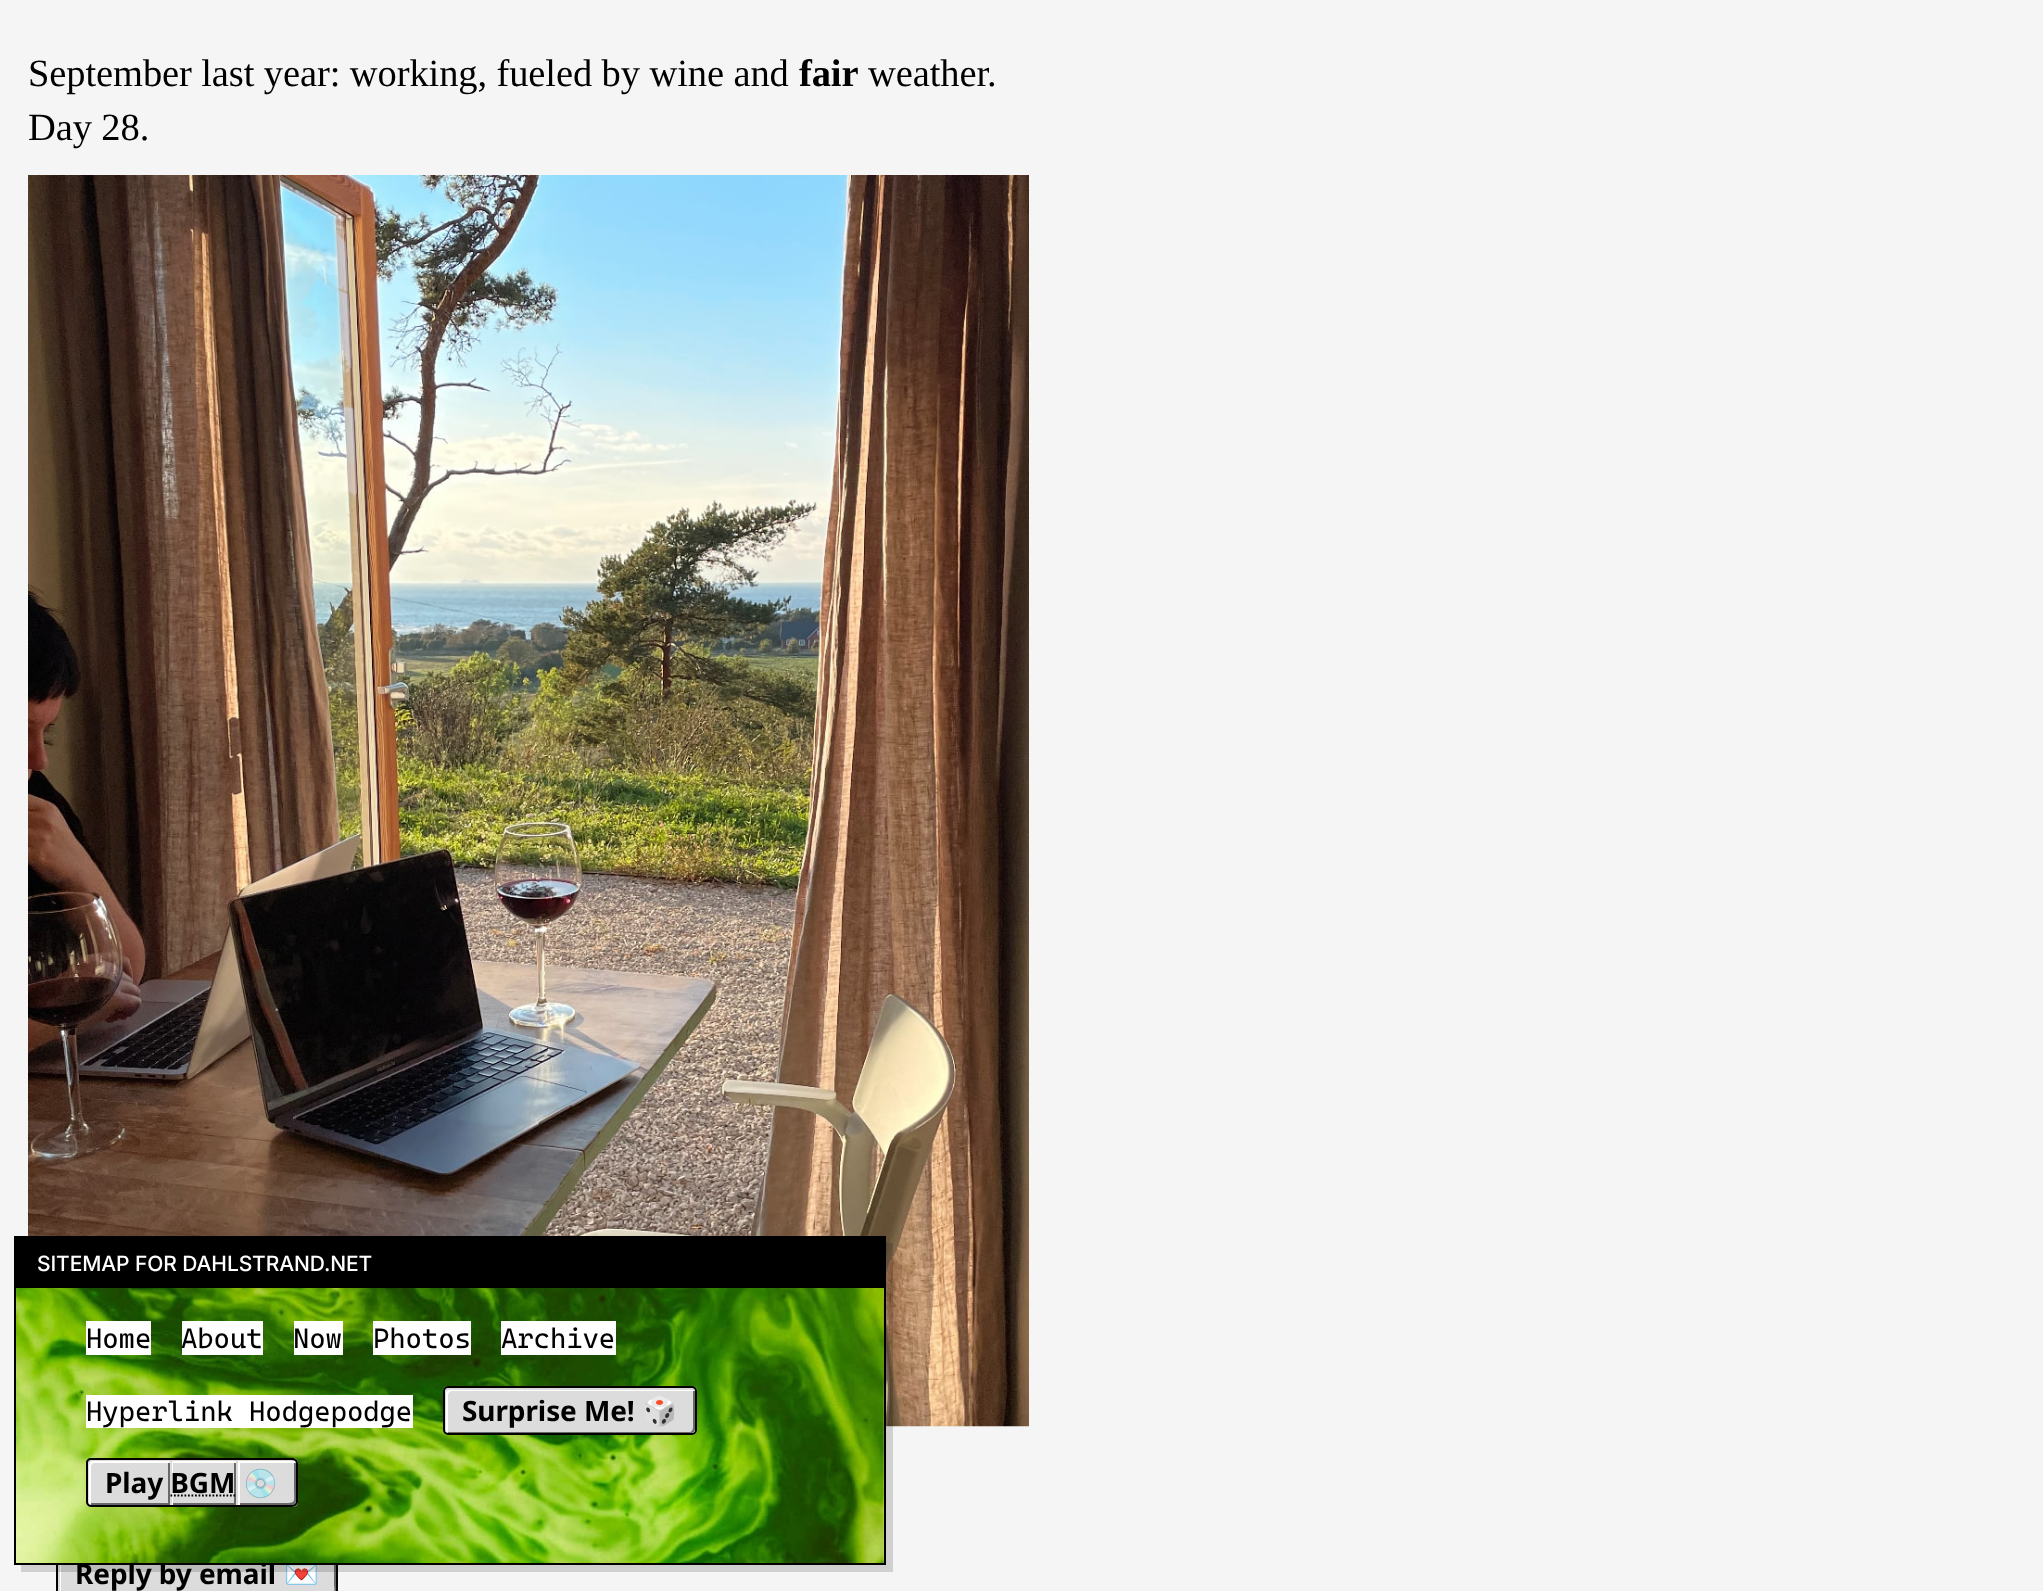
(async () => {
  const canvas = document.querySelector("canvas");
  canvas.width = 2043;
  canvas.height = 1591;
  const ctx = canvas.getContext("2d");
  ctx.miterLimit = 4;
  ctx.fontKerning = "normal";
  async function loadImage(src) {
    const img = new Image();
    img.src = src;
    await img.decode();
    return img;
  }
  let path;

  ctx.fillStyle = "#f5f5f5";
  ctx.fillRect(0, 0, 2043, 1591);
  ctx.drawImage(await loadImage("img/1.png"), 28, 175, 1001, 1252);
  ctx.fillStyle = "#dcdcdc";
  ctx.fillRect(61, 1565, 274, 26);
  ctx.fillStyle = "#696969";
  path = new Path2D("M58 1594C59 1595 60 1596 62 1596H332C334 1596 336 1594 336 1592V1555C336 1554 335 1552 334 1552V1584C334 1587 336 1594 331 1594Z");
  ctx.fill(path);
  ctx.fillStyle = "#ffffff";
  path = new Path2D("M65 1554H336C335 1552 334 1551 332 1551H62C60 1551 58 1553 58 1555V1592C58 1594 59 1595 61 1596V1558C61 1556 63 1554 65 1554Z");
  ctx.fill(path);
  ctx.fillStyle = "#dcdcdc";
  path = new Path2D("M63 1552H335C334 1551 333 1551 332 1551H62C60 1551 58 1553 58 1555V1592C58 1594 59 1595 60 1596V1562C60 1561 59 1552 63 1552Z");
  ctx.fill(path);
  ctx.strokeStyle = "#000000";
  ctx.lineWidth = 2;
  ctx.strokeRect(57, 1550, 280, 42);
  ctx.letterSpacing = "-0.1px";
  ctx.font = "38.5px Liberation Serif";
  ctx.fillStyle = "#000000";
  ctx.fillText("September last year: working, fueled by wine and", 28, 86);
  ctx.font = "bold 38.5px Liberation Serif";
  ctx.fillText("fair", 799, 86);
  ctx.font = "38.5px Liberation Serif";
  ctx.fillText("weather.", 868, 86);
  ctx.fillText("Day 28.", 28, 140);
  ctx.font = "bold 28px Noto Sans";
  ctx.fillText("Reply by email", 75, 1584);
  ctx.font = "bold 28px Noto Color Emoji";
  ctx.fillText("💌", 284, 1584);
  ctx.fillStyle = "rgba(0, 0, 0, 0.15)";
  path = new Path2D("M21 1564V1572H893V1243H886V1564Z");
  ctx.fill(path);
  ctx.drawImage(await loadImage("img/2.png"), 16, 1288, 868, 275);
  ctx.strokeRect(15, 1237, 870, 327);
  ctx.fillStyle = "#000000";
  ctx.fillRect(16, 1238, 868, 50);
  ctx.font = "500 21px Inter";
  ctx.fillStyle = "#ffffff";
  ctx.fillText("SITEMAP FOR DAHLSTRAND.NET", 37, 1271);
  ctx.fillRect(86, 1321, 65, 34);
  ctx.font = "28px Cascadia Code";
  ctx.fillStyle = "#000000";
  ctx.fillText("Home", 86, 1348);
  ctx.fillStyle = "#ffffff";
  ctx.fillRect(182, 1321, 81, 34);
  ctx.fillStyle = "#000000";
  ctx.fillText("About", 181, 1348);
  ctx.fillStyle = "#ffffff";
  ctx.fillRect(294, 1321, 49, 34);
  ctx.fillStyle = "#000000";
  ctx.fillText("Now", 293, 1348);
  ctx.fillStyle = "#ffffff";
  ctx.fillRect(373, 1321, 98, 34);
  ctx.fillStyle = "#000000";
  ctx.fillText("Photos", 373, 1348);
  ctx.fillStyle = "#ffffff";
  ctx.fillRect(501, 1321, 115, 34);
  ctx.fillStyle = "#000000";
  ctx.fillText("Archive", 501, 1348);
  ctx.fillStyle = "#ffffff";
  ctx.fillRect(86, 1395, 327, 33);
  ctx.fillStyle = "#000000";
  ctx.fillText("Hyperlink Hodgepodge", 86, 1421);
  ctx.fillStyle = "#dcdcdc";
  ctx.beginPath();
  ctx.roundRect(443, 1386, 254, 49, 5);
  ctx.fill();
  ctx.fillStyle = "#696969";
  path = new Path2D("M446 1432C447 1433 448 1433 449 1433H691C693 1433 695 1431 695 1429V1392C695 1390 694 1389 693 1388V1390V1428C693 1430 691 1432 690 1432Z");
  ctx.fill(path);
  ctx.fillStyle = "#ffffff";
  path = new Path2D("M452 1391H695C694 1389 693 1388 691 1388H449C447 1388 445 1390 445 1392V1429C445 1431 446 1432 448 1433V1395C448 1393 450 1391 452 1391Z");
  ctx.fill(path);
  ctx.fillStyle = "#dcdcdc";
  path = new Path2D("M450 1390H695C694 1389 693 1388 691 1388H449C447 1388 445 1390 445 1392V1429C445 1430 445 1431 446 1432V1393C446 1391 448 1390 450 1390Z");
  ctx.fill(path);
  ctx.beginPath();
  ctx.roundRect(444, 1387, 252, 47, 4);
  ctx.stroke();
  ctx.font = "bold 28px Noto Color Emoji";
  ctx.fillStyle = "#000000";
  ctx.fillText("🎲", 642, 1421);
  ctx.font = "bold 28px Noto Sans";
  ctx.fillText("Surprise Me!", 462, 1421);
  ctx.fillStyle = "#dcdcdc";
  ctx.beginPath();
  ctx.roundRect(86, 1458, 84, 49, [5, 0, 0, 5]);
  ctx.fill();
  ctx.fillStyle = "#696969";
  path = new Path2D("M89 1503L91 1505H170V1460H168V1503Z");
  ctx.fill(path);
  ctx.fillStyle = "#ffffff";
  path = new Path2D("M94 1463H170V1460H92C90 1460 88 1462 88 1464V1501C88 1503 89 1504 91 1505V1466C91 1465 93 1463 94 1463Z");
  ctx.fill(path);
  ctx.fillStyle = "#dcdcdc";
  path = new Path2D("M93 1461H170V1460H92C90 1460 88 1462 88 1464V1501C88 1502 88 1503 89 1504V1471C89 1469 88 1461 93 1461Z");
  ctx.fill(path);
  ctx.fillStyle = "#000000";
  path = new Path2D("M91 1458H170V1507H91C88 1507 86 1504 86 1502V1463C86 1460 88 1458 91 1458ZM91 1460H170V1505H91C89 1505 88 1503 88 1502V1463C88 1461 89 1460 91 1460Z");
  ctx.fill(path, "evenodd");
  ctx.fillStyle = "#dcdcdc";
  ctx.fillRect(173, 1463, 61, 40);
  ctx.save();
  ctx.beginPath();
  ctx.rect(170, 1460, 66, 45);
  ctx.clip();
  ctx.fillStyle = "#696969";
  path = new Path2D("M-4 1286H410V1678H-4ZM168 1458H234V1503H168Z");
  ctx.fill(path, "evenodd");
  ctx.fillStyle = "#ffffff";
  path = new Path2D("M-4 1286H410V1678H-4ZM173 1463H240V1508H173Z");
  ctx.fill(path, "evenodd");
  ctx.fillStyle = "#dcdcdc";
  path = new Path2D("M-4 1286H410V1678H-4ZM172 1461H238V1507H172Z");
  ctx.fill(path, "evenodd");
  ctx.restore();
  ctx.fillStyle = "#000000";
  ctx.fillText("Play BGM", 105, 1493);
  ctx.fillRect(170, 1458, 66, 2);
  ctx.fillRect(170, 1505, 66, 2);
  path = new Path2D("M170.5 1495.5H235.5");
  ctx.lineWidth = 1.8;
  ctx.setLineDash([1.75, 1.75]);
  ctx.stroke(path);
  ctx.fillStyle = "#dcdcdc";
  ctx.beginPath();
  ctx.roundRect(236, 1458, 62, 49, [0, 5, 5, 0]);
  ctx.fill();
  ctx.fillStyle = "#696969";
  path = new Path2D("M236 1503V1505H292C294 1505 296 1503 296 1501V1464C296 1463 295 1461 294 1461V1487C294 1504 297 1503 281 1503Z");
  ctx.fill(path);
  ctx.fillStyle = "#ffffff";
  path = new Path2D("M240 1463H296C295 1461 294 1460 292 1460H236V1505H240Z");
  ctx.fill(path);
  ctx.fillStyle = "#dcdcdc";
  path = new Path2D("M238 1461H295L293 1460H236V1505H238Z");
  ctx.fill(path);
  ctx.fillStyle = "#000000";
  path = new Path2D("M236 1458H292C295 1458 298 1460 298 1463V1502C298 1504 295 1507 292 1507H236ZM236 1460H292C294 1460 296 1461 296 1463V1502C296 1503 294 1505 292 1505H236Z");
  ctx.fill(path, "evenodd");
  ctx.font = "bold 28px Noto Color Emoji";
  ctx.fillText("💿", 243, 1493);
})();
